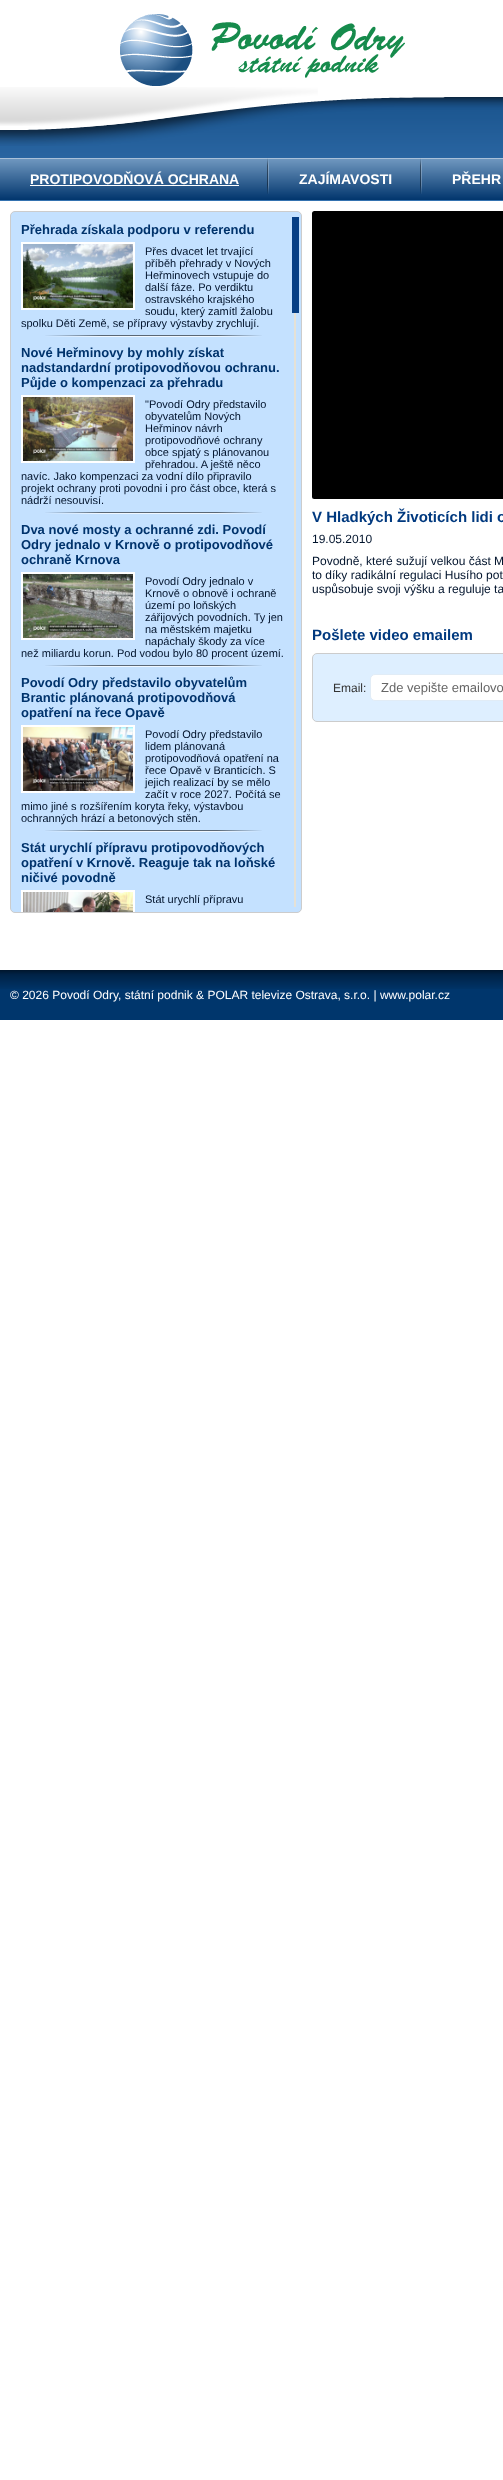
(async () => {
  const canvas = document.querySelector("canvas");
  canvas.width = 503;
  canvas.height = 2480;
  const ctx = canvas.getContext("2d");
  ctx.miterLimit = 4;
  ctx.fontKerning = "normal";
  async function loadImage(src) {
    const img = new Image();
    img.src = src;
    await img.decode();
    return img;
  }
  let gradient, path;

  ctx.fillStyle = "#ffffff";
  ctx.fillRect(0, 0, 503, 2480);
  ctx.drawImage(await loadImage("img/1.png"), 0, 97, 503, 104);
  ctx.drawImage(await loadImage("img/2.png"), 0, 87, 503, 59);
  ctx.drawImage(await loadImage("img/3.png"), 120, 14, 285, 72);
  ctx.drawImage(await loadImage("img/4.png"), 0, 158, 503, 42);
  ctx.drawImage(await loadImage("img/5.png"), 267, 158, 2, 36);
  ctx.fillRect(30, 185, 209, 1);
  ctx.drawImage(await loadImage("img/5.png"), 420, 158, 2, 36);
  ctx.fillStyle = "#c4e1ff";
  ctx.beginPath();
  ctx.roundRect(10.5, 211.5, 291, 701, 4.5);
  ctx.fill();
  ctx.strokeStyle = "#cccccc";
  ctx.stroke();
  ctx.drawImage(await loadImage("img/6.png"), 45, 335, 217, 2);
  ctx.strokeStyle = "#ffffff";
  ctx.lineWidth = 2;
  ctx.strokeRect(22, 243, 112, 66);
  ctx.drawImage(await loadImage("img/7.png"), 23, 244, 110, 64);
  ctx.drawImage(await loadImage("img/6.png"), 45, 512, 217, 2);
  ctx.strokeRect(22, 396, 112, 66);
  ctx.drawImage(await loadImage("img/8.png"), 23, 397, 110, 64);
  ctx.drawImage(await loadImage("img/6.png"), 45, 665, 217, 2);
  ctx.strokeRect(22, 573, 112, 66);
  ctx.drawImage(await loadImage("img/9.png"), 23, 574, 110, 64);
  ctx.drawImage(await loadImage("img/6.png"), 45, 830, 217, 2);
  ctx.strokeRect(22, 726, 112, 66);
  ctx.drawImage(await loadImage("img/10.png"), 23, 727, 110, 64);
  ctx.fillStyle = "#ffffff";
  path = new Path2D("M21 890V912H23V892H133V912H135V890Z");
  ctx.fill(path);
  ctx.drawImage(await loadImage("img/11.png"), 23, 892, 110, 20);
  ctx.fillStyle = "#e5e1d6";
  ctx.fillRect(294, 313, 2, 594);
  ctx.fillStyle = "#063e84";
  ctx.fillRect(292, 217, 7, 96);
  ctx.fillStyle = "#000000";
  ctx.beginPath();
  ctx.roundRect(312, 211, 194, 288, 2.5);
  ctx.fill();
  gradient = ctx.createLinearGradient(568, 499, 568, 211);
  gradient.addColorStop(0, "rgba(0, 0, 0, 0.25)");
  gradient.addColorStop(0.15, "rgba(0, 0, 0, 0)");
  ctx.fillStyle = gradient;
  ctx.beginPath();
  ctx.roundRect(312, 211, 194, 288, 2.5);
  ctx.fill();
  ctx.fillStyle = "#deefff";
  ctx.beginPath();
  ctx.roundRect(312.5, 653.5, 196, 68, 4.5);
  ctx.fill();
  ctx.strokeStyle = "#cccccc";
  ctx.lineWidth = 1;
  ctx.stroke();
  ctx.fillStyle = "#ffffff";
  ctx.beginPath();
  ctx.roundRect(370.5, 674.5, 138, 26, 4.5);
  ctx.fill();
  ctx.strokeStyle = "#e1ecf6";
  ctx.stroke();
  ctx.fillStyle = "#00366c";
  ctx.fillRect(0, 989, 503, 31);
  ctx.drawImage(await loadImage("img/12.png"), 0, 970, 503, 19);
  ctx.font = "bold 14px Liberation Sans";
  ctx.fillStyle = "#ffffff";
  for (const [text, x, y] of [
    ["PROTIPOVODŇOVÁ OCHRANA", 30, 184],
    ["ZAJÍMAVOSTI", 299, 184],
    ["PŘEHR", 452, 184],
  ]) {
    ctx.fillText(text, x, y);
  }
  ctx.font = "bold 13px Liberation Sans";
  ctx.fillStyle = "#00336c";
  ctx.fillText("Přehrada získala podporu v referendu", 21, 234);
  ctx.font = "11px Liberation Sans";
  ctx.fillStyle = "#00132c";
  for (const [text, x, y] of [
    ["Přes dvacet let trvající", 145, 255],
    ["příběh přehrady v Nových", 145, 267],
    ["Heřminovech vstupuje do", 145, 279],
    ["další fáze. Po verdiktu", 145, 291],
    ["ostravského krajského", 145, 303],
    ["soudu, který zamítl žalobu", 145, 315],
    ["spolku Děti Země, se přípravy výstavby zrychlují.", 21, 327],
  ]) {
    ctx.fillText(text, x, y);
  }
  ctx.font = "bold 13px Liberation Sans";
  ctx.fillStyle = "#00336c";
  for (const [text, x, y] of [
    ["Nové Heřminovy by mohly získat", 21, 357],
    ["nadstandardní protipovodňovou ochranu.", 21, 372],
    ["Půjde o kompenzaci za přehradu", 21, 387],
  ]) {
    ctx.fillText(text, x, y);
  }
  ctx.font = "11px Liberation Sans";
  ctx.fillStyle = "#00132c";
  for (const [text, x, y] of [
    ["\"Povodí Odry představilo", 145, 408],
    ["obyvatelům Nových", 145, 420],
    ["Heřminov návrh", 145, 432],
    ["protipovodňové ochrany", 145, 444],
    ["obce spjatý s plánovanou", 145, 456],
    ["přehradou. A ještě něco", 145, 468],
    ["navíc. Jako kompenzaci za vodní dílo připravilo", 21, 480],
    ["projekt ochrany proti povodni i pro část obce, která s", 21, 492],
    ["nádrží nesouvisí.", 21, 504],
  ]) {
    ctx.fillText(text, x, y);
  }
  ctx.font = "bold 13px Liberation Sans";
  ctx.fillStyle = "#00336c";
  for (const [text, x, y] of [
    ["Dva nové mosty a ochranné zdi. Povodí", 21, 534],
    ["Odry jednalo v Krnově o protipovodňové", 21, 549],
    ["ochraně Krnova", 21, 564],
  ]) {
    ctx.fillText(text, x, y);
  }
  ctx.font = "11px Liberation Sans";
  ctx.fillStyle = "#00132c";
  for (const [text, x, y] of [
    ["Povodí Odry jednalo v", 145, 585],
    ["Krnově o obnově i ochraně", 145, 597],
    ["území po loňských", 145, 609],
    ["zářijových povodních. Ty jen", 145, 621],
    ["na městském majetku", 145, 633],
    ["napáchaly škody za více", 145, 645],
    ["než miliardu korun. Pod vodou bylo 80 procent území.", 21, 657],
  ]) {
    ctx.fillText(text, x, y);
  }
  ctx.font = "bold 13px Liberation Sans";
  ctx.fillStyle = "#00336c";
  for (const [text, x, y] of [
    ["Povodí Odry představilo obyvatelům", 21, 687],
    ["Brantic plánovaná protipovodňová", 21, 702],
    ["opatření na řece Opavě", 21, 717],
  ]) {
    ctx.fillText(text, x, y);
  }
  ctx.font = "11px Liberation Sans";
  ctx.fillStyle = "#00132c";
  for (const [text, x, y] of [
    ["Povodí Odry představilo", 145, 738],
    ["lidem plánovaná", 145, 750],
    ["protipovodňová opatření na", 145, 762],
    ["řece Opavě v Branticích. S", 145, 774],
    ["jejich realizací by se mělo", 145, 786],
    ["začít v roce 2027. Počítá se", 145, 798],
    ["mimo jiné s rozšířením koryta řeky, výstavbou", 21, 810],
    ["ochranných hrází a betonových stěn.", 21, 822],
  ]) {
    ctx.fillText(text, x, y);
  }
  ctx.font = "bold 13px Liberation Sans";
  ctx.fillStyle = "#00336c";
  for (const [text, x, y] of [
    ["Stát urychlí přípravu protipovodňových", 21, 852],
    ["opatření v Krnově. Reaguje tak na loňské", 21, 867],
    ["ničivé povodně", 21, 882],
  ]) {
    ctx.fillText(text, x, y);
  }
  ctx.font = "11px Liberation Sans";
  ctx.fillStyle = "#00132c";
  ctx.fillText("Stát urychlí přípravu", 145, 903);
  ctx.font = "bold 15px Liberation Sans";
  ctx.fillStyle = "#00397f";
  ctx.fillText("V Hladkých Životicích lidi o", 312, 522);
  ctx.font = "12px Liberation Sans";
  ctx.fillStyle = "#00132c";
  for (const [text, x, y] of [
    ["19.05.2010", 312, 543],
    ["Povodně, které sužují velkou část M", 312, 565],
    ["to díky radikální regulaci Husího pot", 312, 579],
    ["uspůsobuje svoji výšku a reguluje ta", 312, 593],
  ]) {
    ctx.fillText(text, x, y);
  }
  ctx.font = "bold 15px Liberation Sans";
  ctx.fillStyle = "#00397f";
  ctx.fillText("Pošlete video emailem", 312, 640);
  ctx.font = "12px Liberation Sans";
  ctx.fillStyle = "#333333";
  ctx.fillText("Email:", 333, 692);
  ctx.font = "13px Liberation Sans";
  ctx.fillStyle = "#666666";
  ctx.fillText("Zde vepište emailovo", 381, 692);
  ctx.font = "12px Liberation Sans";
  ctx.fillStyle = "#ffffff";
  ctx.fillText("© 2026 Povodí Odry, státní podnik & POLAR televize Ostrava, s.r.o. | www.polar.cz", 10, 999);
})();
